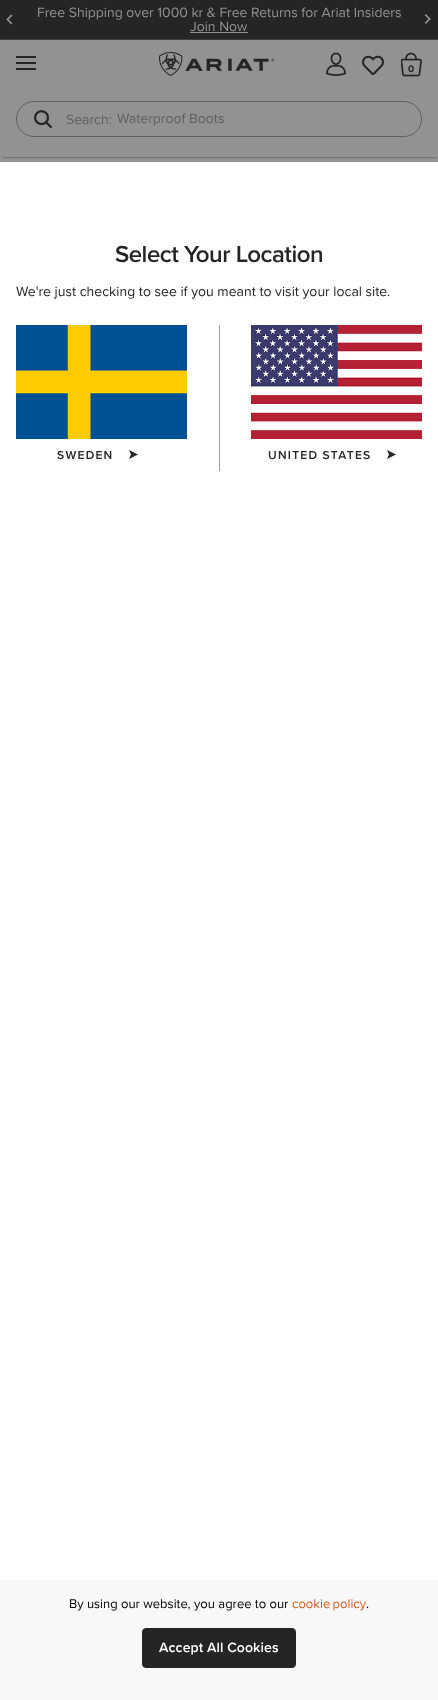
(async () => {
  const canvas = document.querySelector("canvas");
  canvas.width = 438;
  canvas.height = 1700;
  const ctx = canvas.getContext("2d");
  ctx.miterLimit = 4;
  ctx.fontKerning = "normal";
  async function loadImage(src) {
    const img = new Image();
    img.src = src;
    await img.decode();
    return img;
  }
  let path;

  ctx.fillStyle = "#929292";
  ctx.fillRect(0, 0, 438, 1700);
  ctx.save();
  ctx.beginPath();
  ctx.rect(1, 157, 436, 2);
  ctx.clip();
  ctx.fillStyle = "rgba(19, 19, 19, 0.65)";
  ctx.filter = "blur(1px)";
  ctx.beginPath();
  ctx.rect(2, 4, 434, 153);
  ctx.fill();
  ctx.filter = "none";
  ctx.restore();
  ctx.fillStyle = "#252525";
  ctx.fillRect(0, 0, 438, 39);
  ctx.fillStyle = "#3d3d3d";
  ctx.fillRect(0, 39, 438, 1);
  ctx.drawImage(await loadImage("img/1.png"), 6, 14, 7, 11);
  ctx.fillStyle = "#929292";
  ctx.fillRect(190, 32, 58, 1);
  ctx.drawImage(await loadImage("img/2.png"), 424, 14, 7, 10);
  for (const [x, y, w, h, color] of [
    [16, 56, 20, 2, "#252525"],
    [16, 62, 20, 2, "#252525"],
    [16, 68, 20, 2, "#252525"],
  ]) {
    ctx.fillStyle = color;
    ctx.fillRect(x, y, w, h);
  }
  ctx.drawImage(await loadImage("img/3.png"), 159, 52, 115, 24);
  ctx.drawImage(await loadImage("img/4.png"), 326, 52, 20, 24);
  ctx.drawImage(await loadImage("img/5.png"), 362, 55, 22, 20);
  ctx.drawImage(await loadImage("img/6.png"), 401, 52, 21, 25);
  ctx.beginPath();
  ctx.roundRect(16.5, 101.5, 405, 35, 17.5);
  ctx.strokeStyle = "#606060";
  ctx.stroke();
  ctx.drawImage(await loadImage("img/7.png"), 34, 110, 18, 19);
  ctx.fillStyle = "#ffffff";
  ctx.fillRect(0, 162, 438, 1418);
  ctx.drawImage(await loadImage("img/8.png"), 16, 325, 171, 114);
  ctx.fillStyle = "#252525";
  path = new Path2D("M138 454.5L129 459L131 454.5L129 450Z");
  ctx.fill(path);
  ctx.fillStyle = "#9b9b9b";
  ctx.fillRect(219, 325, 1, 146);
  ctx.drawImage(await loadImage("img/9.png"), 251, 325, 171, 114);
  ctx.fillStyle = "#252525";
  path = new Path2D("M396 454.5L387 459L389 454.5L387 450Z");
  ctx.fill(path);
  ctx.fillStyle = "#f8f8f8";
  ctx.fillRect(0, 1580, 438, 120);
  ctx.fillStyle = "#252525";
  ctx.beginPath();
  ctx.roundRect(142.5, 1628.5, 153, 39, 3.5);
  ctx.fill();
  ctx.strokeStyle = "#252525";
  ctx.stroke();
  ctx.font = "14px Proxima Nova";
  ctx.fillStyle = "#929292";
  ctx.fillText("Free Shipping over 1000 kr & Free Returns for Ariat Insiders", 37, 17);
  ctx.fillText("Join Now", 190, 31);
  ctx.letterSpacing = "1px";
  ctx.font = "bold 10px Proxima Nova";
  ctx.fillStyle = "#252525";
  ctx.fillText("0", 408, 72);
  ctx.letterSpacing = "0px";
  ctx.font = "14px Proxima Nova";
  ctx.fillStyle = "#606060";
  ctx.fillText("Search:", 66, 124);
  ctx.fillText("Waterproof Boots", 117, 123);
  ctx.letterSpacing = "-0.5px";
  ctx.font = "600 24px Proxima Nova";
  ctx.fillStyle = "#252525";
  ctx.fillText("Select Your Location", 115, 262);
  ctx.letterSpacing = "0px";
  ctx.font = "14px Proxima Nova";
  ctx.fillText("We're just checking to see if you meant to visit your local site.", 16, 296);
  ctx.letterSpacing = "1.25px";
  ctx.font = "600 12px Proxima Nova";
  ctx.fillText("SWEDEN", 57, 459);
  ctx.fillText("UNITED STATES", 268, 459);
  ctx.letterSpacing = "0px";
  ctx.font = "13px Proxima Nova";
  ctx.fillStyle = "#000000";
  ctx.fillText("By using our website, you agree to our", 69, 1608);
  ctx.wordSpacing = "-1px";
  ctx.fillStyle = "#d35c1c";
  ctx.fillText("cookie policy", 292, 1608);
  ctx.wordSpacing = "0px";
  ctx.fillStyle = "#000000";
  ctx.fillText(".", 366, 1608);
  ctx.letterSpacing = "0.1px";
  ctx.font = "600 14px Proxima Nova";
  ctx.fillStyle = "#ffffff";
  ctx.fillText("Accept All Cookies", 159, 1652);
})();
